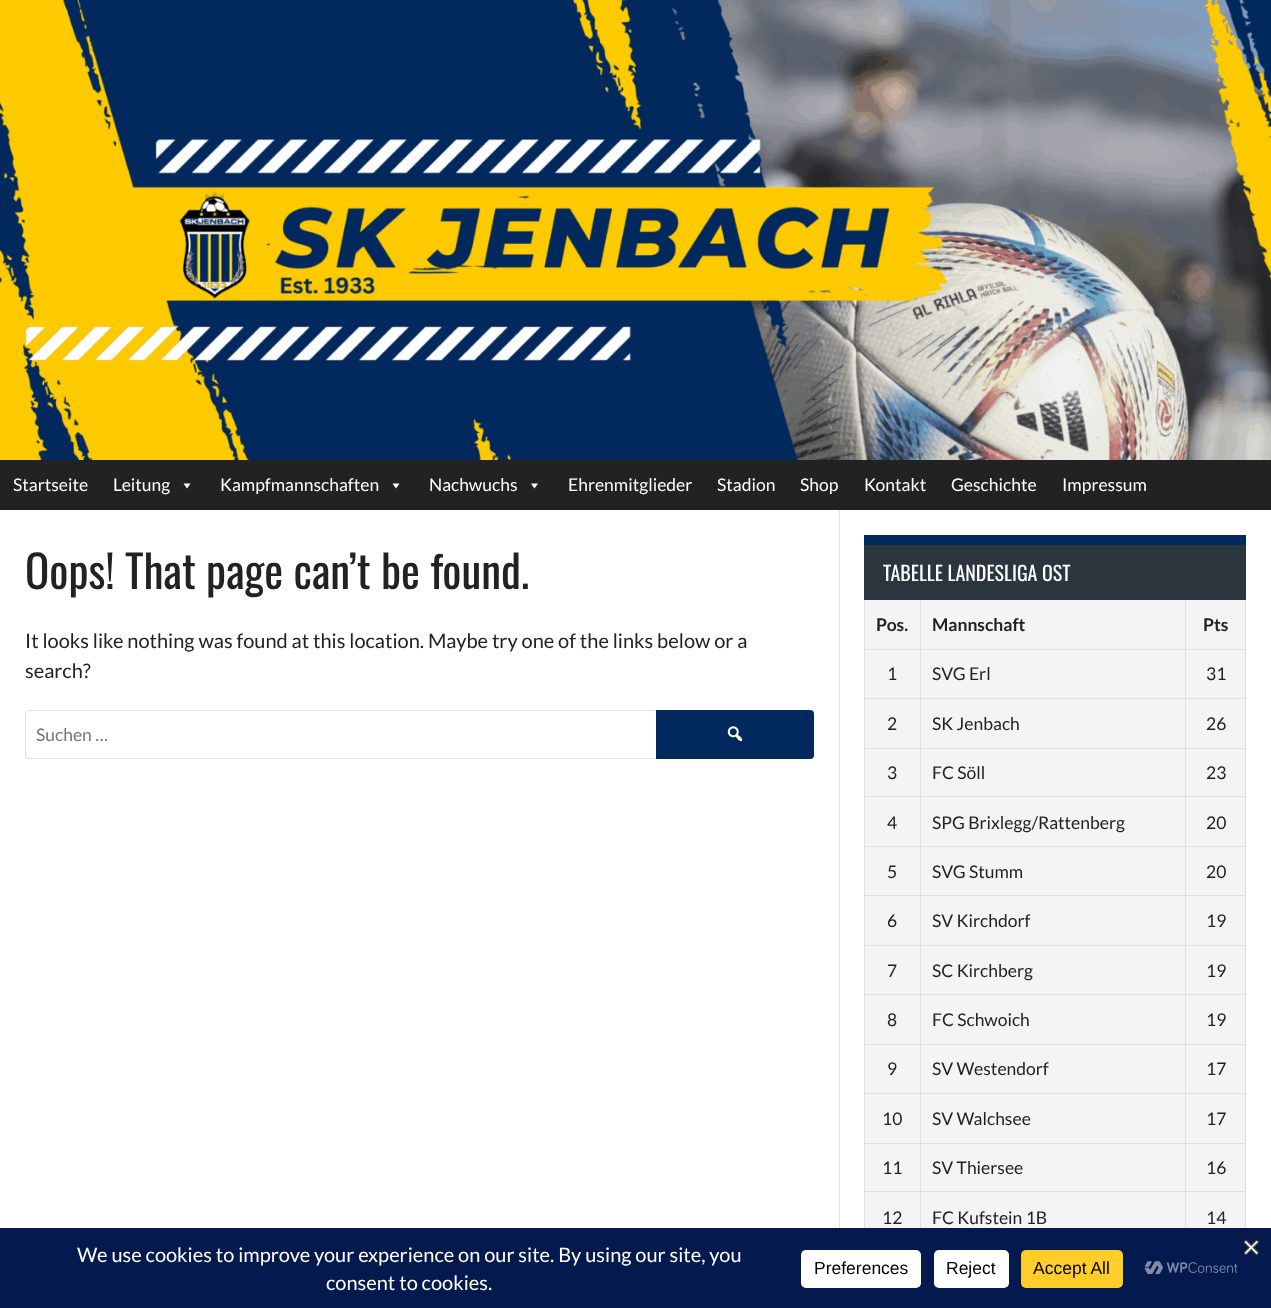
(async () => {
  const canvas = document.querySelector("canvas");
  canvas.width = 1271;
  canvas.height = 1308;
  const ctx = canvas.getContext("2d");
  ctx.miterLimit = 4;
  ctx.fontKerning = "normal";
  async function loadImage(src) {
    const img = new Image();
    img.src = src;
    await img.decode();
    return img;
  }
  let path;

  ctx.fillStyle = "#ffffff";
  ctx.fillRect(0, 0, 1271, 1308);
  ctx.drawImage(await loadImage("img/1.png"), 0, 0, 1271, 460);
  ctx.fillStyle = "#222222";
  ctx.fillRect(0, 460, 1271, 50);
  ctx.fillStyle = "#ffffff";
  path = new Path2D("M190.5 483.5L187 488.5L183.5 483.5Z");
  ctx.fill(path);
  path = new Path2D("M399.5 483.5L396 488.5L392.5 483.5Z");
  ctx.fill(path);
  path = new Path2D("M538 483.5L534.5 488.5L531 483.5Z");
  ctx.fill(path);
  ctx.fillStyle = "#e0e0e0";
  path = new Path2D("M29 710H656V759H29C27 759 25 757 25 755V714C25 712 27 710 29 710ZM29 711H656V758H29C27 758 26 756 26 755V714C26 712 27 711 29 711Z");
  ctx.fill(path, "evenodd");
  ctx.fillStyle = "#01295d";
  ctx.beginPath();
  ctx.roundRect(656, 710, 158, 49, [0, 4, 4, 0]);
  ctx.fill();
  ctx.drawImage(await loadImage("img/2.png"), 727, 726, 16, 16);
  for (const [x, y, w, h, color] of [
    [839, 510, 1, 718, "#e0e0e0"],
    [1245, 599, 1, 629, "#e0e0e0"],
    [864, 599, 1, 629, "#e0e0e0"],
    [865, 600, 380, 628, "#f4f4f4"],
    [1185, 649, 61, 1, "#e0e0e0"],
    [1185, 698, 61, 1, "#e0e0e0"],
    [1185, 748, 61, 1, "#e0e0e0"],
    [1185, 796, 61, 1, "#e0e0e0"],
    [1185, 846, 61, 1, "#e0e0e0"],
    [1185, 895, 61, 1, "#e0e0e0"],
    [1185, 945, 61, 1, "#e0e0e0"],
    [1185, 994, 61, 1, "#e0e0e0"],
    [1185, 1044, 61, 1, "#e0e0e0"],
    [1185, 1093, 61, 1, "#e0e0e0"],
    [1185, 1143, 61, 1, "#e0e0e0"],
    [1185, 1191, 61, 1, "#e0e0e0"],
    [1185, 1191, 1, 37, "#e0e0e0"],
    [920, 1191, 266, 1, "#e0e0e0"],
    [1185, 1143, 1, 50, "#e0e0e0"],
    [920, 1143, 266, 1, "#e0e0e0"],
    [1185, 1093, 1, 51, "#e0e0e0"],
    [920, 1093, 266, 1, "#e0e0e0"],
    [1185, 1044, 1, 50, "#e0e0e0"],
    [920, 1044, 266, 1, "#e0e0e0"],
    [1185, 994, 1, 51, "#e0e0e0"],
    [920, 994, 266, 1, "#e0e0e0"],
    [1185, 945, 1, 50, "#e0e0e0"],
    [920, 945, 266, 1, "#e0e0e0"],
    [1185, 895, 1, 51, "#e0e0e0"],
    [920, 895, 266, 1, "#e0e0e0"],
    [1185, 846, 1, 50, "#e0e0e0"],
    [920, 846, 266, 1, "#e0e0e0"],
    [1185, 796, 1, 52, "#e0e0e0"],
    [920, 796, 266, 1, "#e0e0e0"],
    [1185, 748, 1, 50, "#e0e0e0"],
    [920, 748, 266, 1, "#e0e0e0"],
    [1185, 698, 1, 51, "#e0e0e0"],
    [920, 698, 266, 1, "#e0e0e0"],
    [1185, 649, 1, 50, "#e0e0e0"],
    [920, 649, 266, 1, "#e0e0e0"],
    [920, 1191, 1, 37, "#e0e0e0"],
    [864, 1191, 57, 1, "#e0e0e0"],
    [920, 1143, 1, 50, "#e0e0e0"],
    [864, 1143, 57, 1, "#e0e0e0"],
    [920, 1093, 1, 51, "#e0e0e0"],
    [864, 1093, 57, 1, "#e0e0e0"],
    [920, 1044, 1, 50, "#e0e0e0"],
    [864, 1044, 57, 1, "#e0e0e0"],
    [920, 994, 1, 51, "#e0e0e0"],
    [864, 994, 57, 1, "#e0e0e0"],
    [920, 945, 1, 50, "#e0e0e0"],
    [864, 945, 57, 1, "#e0e0e0"],
    [920, 895, 1, 51, "#e0e0e0"],
    [864, 895, 57, 1, "#e0e0e0"],
    [920, 846, 1, 50, "#e0e0e0"],
    [864, 846, 57, 1, "#e0e0e0"],
    [920, 796, 1, 52, "#e0e0e0"],
    [864, 796, 57, 1, "#e0e0e0"],
    [920, 748, 1, 50, "#e0e0e0"],
    [864, 748, 57, 1, "#e0e0e0"],
    [920, 698, 1, 51, "#e0e0e0"],
    [864, 698, 57, 1, "#e0e0e0"],
    [920, 649, 1, 50, "#e0e0e0"],
    [864, 649, 57, 1, "#e0e0e0"],
    [920, 599, 1, 51, "#e0e0e0"],
    [1185, 599, 1, 51, "#e0e0e0"],
    [864, 545, 382, 55, "#2b353e"],
    [864, 535, 382, 10, "#01295d"],
    [0, 1228, 1271, 80, "#04194e"],
  ]) {
    ctx.fillStyle = color;
    ctx.fillRect(x, y, w, h);
  }
  ctx.fillStyle = "#ffffff";
  ctx.beginPath();
  ctx.roundRect(801, 1250, 120, 38, 5);
  ctx.fill();
  ctx.beginPath();
  ctx.roundRect(934, 1250, 75, 38, 5);
  ctx.fill();
  ctx.fillStyle = "#ffcd2a";
  ctx.beginPath();
  ctx.roundRect(1021, 1250, 102, 38, 5);
  ctx.fill();
  ctx.drawImage(await loadImage("img/3.png"), 1144, 1261, 94, 13);
  ctx.drawImage(await loadImage("img/4.png"), 1244, 1240, 15, 15);
  ctx.font = "17.5px Lato";
  ctx.fillStyle = "#ffffff";
  for (const [text, x, y] of [
    ["Startseite", 13, 491],
    ["Leitung", 113, 491],
    ["Kampfmannschaften", 220, 491],
    ["Nachwuchs", 429, 491],
    ["Ehrenmitglieder", 568, 491],
    ["Stadion", 717, 491],
    ["Shop", 800, 491],
    ["Kontakt", 864, 491],
    ["Geschichte", 951, 491],
    ["Impressum", 1062, 491],
  ]) {
    ctx.fillText(text, x, y);
  }
  ctx.font = "45px Oswald";
  ctx.fillStyle = "#222222";
  ctx.fillText("Oops! That page can’t be found.", 25, 589);
  ctx.font = "20px Lato";
  ctx.fillText("It looks like nothing was found at this location. Maybe try one of the links below or a", 25, 648);
  ctx.fillText("search?", 25, 678);
  ctx.font = "17.5px Lato";
  ctx.fillStyle = "#757575";
  ctx.fillText("Suchen …", 36, 741);
  ctx.font = "20px Oswald";
  ctx.fillStyle = "#ffffff";
  ctx.fillText("TABELLE LANDESLIGA OST", 883, 581);
  ctx.font = "bold 17.5px Lato";
  ctx.fillStyle = "#222222";
  for (const [text, x, y] of [
    ["Pos.", 876, 631],
    ["Mannschaft", 932, 631],
    ["Pts", 1203, 631],
  ]) {
    ctx.fillText(text, x, y);
  }
  ctx.font = "17.5px Lato";
  for (const [text, x, y] of [
    ["1", 887, 680],
    ["SVG Erl", 932, 680],
    ["31", 1206, 680],
    ["2", 887, 730],
    ["SK Jenbach", 932, 730],
    ["26", 1206, 730],
    ["3", 887, 779],
    ["FC Söll", 932, 779],
    ["23", 1206, 779],
    ["4", 887, 829],
    ["SPG Brixlegg/Rattenberg", 932, 829],
    ["20", 1206, 829],
    ["5", 887, 878],
    ["SVG Stumm", 932, 878],
    ["20", 1206, 878],
    ["6", 887, 927],
    ["SV Kirchdorf", 932, 927],
    ["19", 1206, 927],
    ["7", 887, 977],
    ["SC Kirchberg", 932, 977],
    ["19", 1206, 977],
    ["8", 887, 1026],
    ["FC Schwoich", 932, 1026],
    ["19", 1206, 1026],
    ["9", 887, 1075],
    ["SV Westendorf", 932, 1075],
    ["17", 1206, 1075],
    ["10", 882, 1125],
    ["SV Walchsee", 932, 1125],
    ["17", 1206, 1125],
    ["11", 882, 1174],
    ["SV Thiersee", 932, 1174],
    ["16", 1206, 1174],
    ["12", 882, 1224],
    ["FC Kufstein 1B", 932, 1224],
    ["14", 1206, 1224],
  ]) {
    ctx.fillText(text, x, y);
  }
  ctx.font = "20px Lato";
  ctx.fillStyle = "#ffffff";
  ctx.fillText("We use cookies to improve your experience on our site. By using our site, you", 77, 1262);
  ctx.fillText("consent to cookies.", 326, 1290);
  ctx.font = "17.5px Liberation Sans";
  ctx.fillStyle = "#000000";
  for (const [text, x, y] of [
    ["Preferences", 814, 1274],
    ["Reject", 946, 1274],
    ["Accept All", 1033, 1274],
  ]) {
    ctx.fillText(text, x, y);
  }
})();
